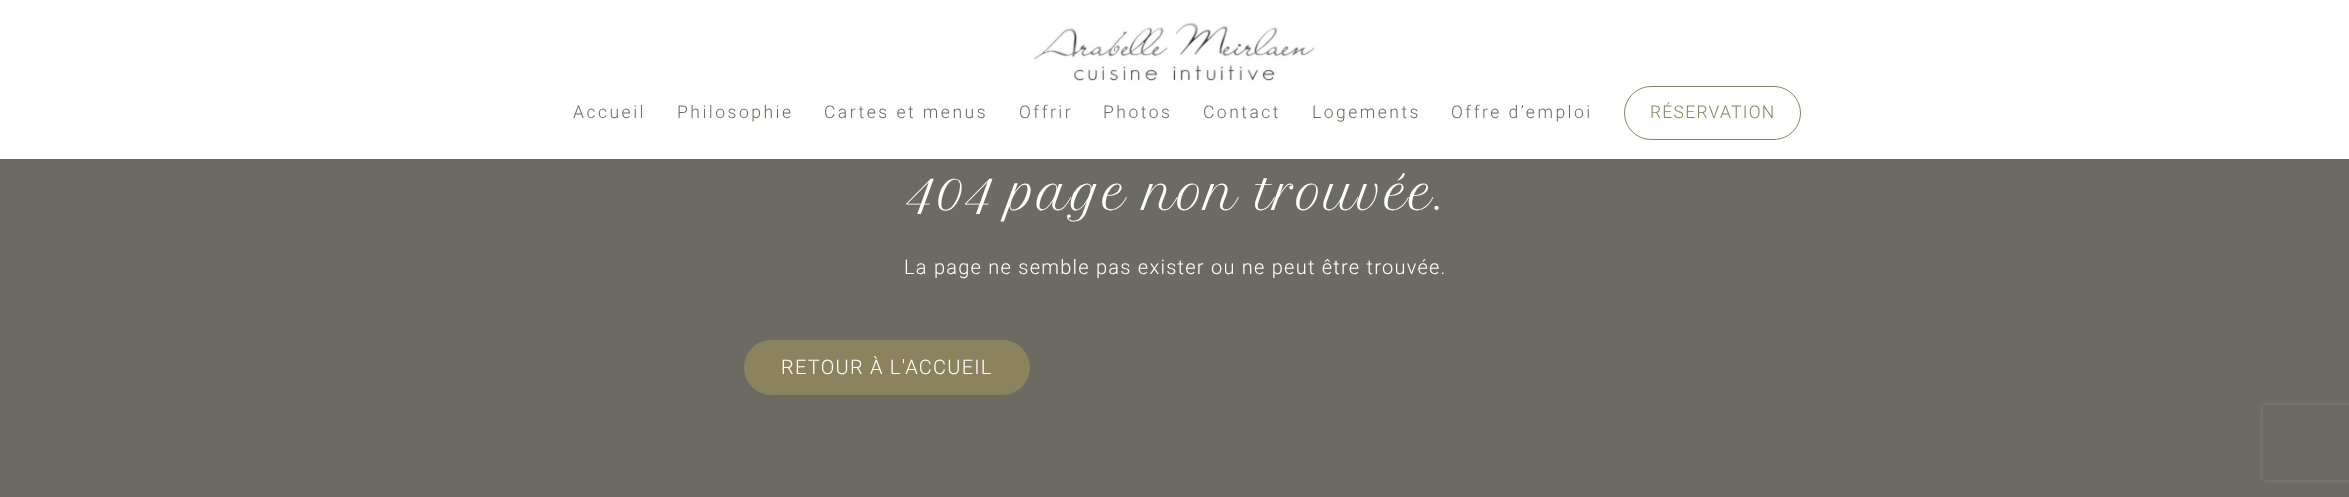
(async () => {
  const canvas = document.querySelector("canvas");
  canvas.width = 2349;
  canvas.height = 497;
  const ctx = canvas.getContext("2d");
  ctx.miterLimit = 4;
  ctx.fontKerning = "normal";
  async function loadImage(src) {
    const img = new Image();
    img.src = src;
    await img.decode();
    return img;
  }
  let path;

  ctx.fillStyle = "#6c6a62";
  ctx.fillRect(0, 0, 2349, 497);
  ctx.fillStyle = "#ffffff";
  ctx.fillRect(0, 0, 2349, 159);
  ctx.drawImage(await loadImage("img/1.png"), 1034, 22, 281, 59);
  ctx.beginPath();
  ctx.roundRect(1624.5, 86.5, 176, 53, 26.5);
  ctx.strokeStyle = "#8b835e";
  ctx.stroke();
  ctx.fillStyle = "#8b835e";
  ctx.beginPath();
  ctx.roundRect(744, 340, 286, 55, 27.5);
  ctx.fill();
  ctx.save();
  path = new Path2D("M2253 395H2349V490H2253ZM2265.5 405H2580.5C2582 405 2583 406 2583 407.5V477.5C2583 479 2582 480 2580.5 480H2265.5C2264 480 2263 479 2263 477.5V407.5C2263 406 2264 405 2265.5 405Z");
  ctx.clip(path, "evenodd");
  ctx.fillStyle = "#808080";
  ctx.filter = "blur(3px)";
  ctx.beginPath();
  ctx.roundRect(2263, 405, 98, 75, 2.5);
  ctx.fill();
  ctx.filter = "none";
  ctx.restore();
  ctx.letterSpacing = "2.5px";
  ctx.font = "300 17.5px Roboto";
  ctx.fillStyle = "#6c6a62";
  for (const [text, x, y] of [
    ["Accueil", 573, 118],
    ["Philosophie", 677, 118],
    ["Cartes et menus", 824, 118],
    ["Offrir", 1019, 118],
    ["Photos", 1103, 118],
    ["Contact", 1203, 118],
    ["Logements", 1312, 118],
    ["Offre d’emploi", 1451, 118],
  ]) {
    ctx.fillText(text, x, y);
  }
  ctx.letterSpacing = "1.25px";
  ctx.fillStyle = "#8b835e";
  ctx.fillText("RÉSERVATION", 1650, 118);
  ctx.font = "45px Petit Formal Script";
  ctx.fillStyle = "#ffffff";
  ctx.fillText("404 page non trouvée.", 904, 210);
  ctx.font = "300 20px Roboto";
  ctx.fillText("La page ne semble pas exister ou ne peut être trouvée.", 904, 274);
  ctx.fillText("RETOUR À L'ACCUEIL", 781, 374);
})();
